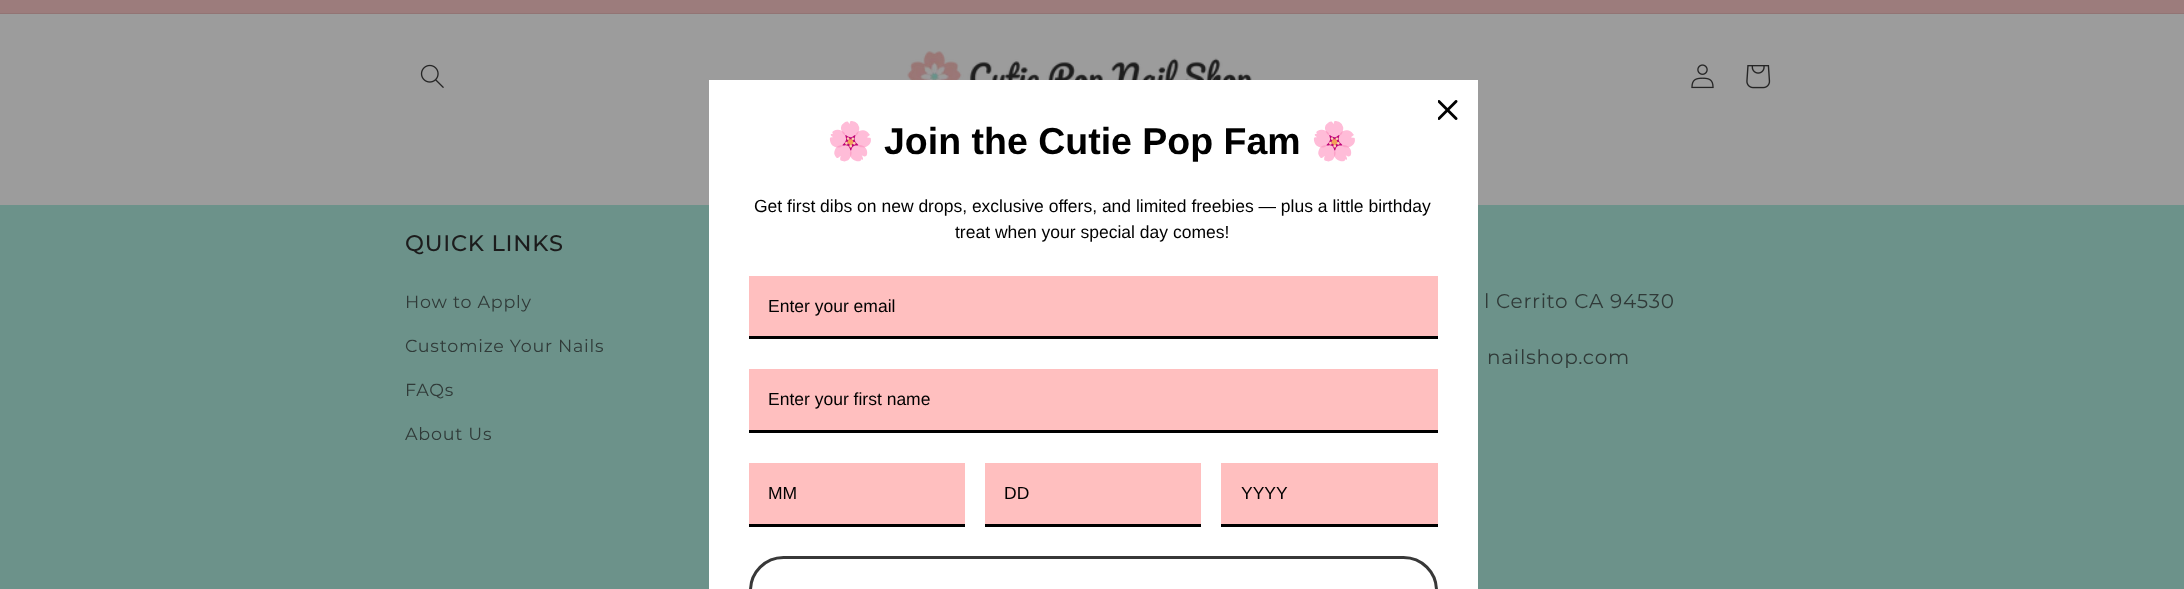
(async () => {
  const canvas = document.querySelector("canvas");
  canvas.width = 2184;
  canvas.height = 589;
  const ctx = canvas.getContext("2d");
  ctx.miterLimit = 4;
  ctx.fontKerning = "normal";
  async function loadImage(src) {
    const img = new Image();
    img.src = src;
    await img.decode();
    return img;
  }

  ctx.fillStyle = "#9c9c9c";
  ctx.fillRect(0, 0, 2184, 589);
  ctx.fillStyle = "#9c7c7c";
  ctx.fillRect(0, 0, 2184, 13);
  ctx.fillStyle = "#927474";
  ctx.fillRect(0, 13, 2184, 1);
  ctx.drawImage(await loadImage("img/1.png"), 420, 64, 24, 24);
  ctx.drawImage(await loadImage("img/2.png"), 907, 51, 345, 29);
  ctx.drawImage(await loadImage("img/3.png"), 1691, 64, 23, 25);
  ctx.drawImage(await loadImage("img/4.png"), 1746, 65, 25, 24);
  ctx.fillStyle = "#6c928a";
  ctx.fillRect(0, 205, 2184, 384);
  ctx.fillStyle = "#ffffff";
  ctx.fillRect(709, 80, 769, 509);
  ctx.drawImage(await loadImage("img/5.png"), 1438, 100, 20, 20);
  for (const [x, y, w, h, color] of [
    [749, 276, 689, 60, "#ffbfbf"],
    [749, 336, 689, 3, "#000000"],
    [749, 369, 689, 61, "#ffbfbf"],
    [749, 430, 689, 3, "#000000"],
    [749, 463, 216, 61, "#ffbfbf"],
    [749, 524, 216, 3, "#000000"],
    [985, 463, 216, 61, "#ffbfbf"],
    [985, 524, 216, 3, "#000000"],
    [1221, 463, 217, 61, "#ffbfbf"],
    [1221, 524, 217, 3, "#000000"],
  ]) {
    ctx.fillStyle = color;
    ctx.fillRect(x, y, w, h);
  }
  ctx.beginPath();
  ctx.roundRect(750.5, 557.5, 686, 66, 33);
  ctx.strokeStyle = "#383838";
  ctx.lineWidth = 3;
  ctx.stroke();
  ctx.font = "37.5px Noto Color Emoji";
  ctx.fillText("🌸", 827, 154);
  ctx.font = "bold 37.5px Liberation Sans";
  ctx.fillText("Join the Cutie Pop Fam", 884, 154);
  ctx.font = "bold 37.5px Noto Color Emoji";
  ctx.fillText("🌸", 1311, 154);
  ctx.font = "17.5px Liberation Sans";
  for (const [text, x, y] of [
    ["Get first dibs on new drops, exclusive offers, and limited freebies — plus a little birthday", 754, 212],
    ["treat when your special day comes!", 955, 238],
    ["Enter your email", 768, 312],
    ["Enter your first name", 768, 405],
    ["MM", 768, 499],
    ["DD", 1004, 499],
    ["YYYY", 1241, 499],
  ]) {
    ctx.fillText(text, x, y);
  }
  ctx.letterSpacing = "0.75px";
  ctx.font = "500 22.5px Montserrat";
  ctx.fillStyle = "#1c1c1c";
  ctx.fillText("QUICK LINKS", 405, 251);
  ctx.font = "17.5px Montserrat";
  ctx.fillStyle = "#303a38";
  for (const [text, x, y] of [
    ["How to Apply", 405, 308],
    ["Customize Your Nails", 405, 352],
    ["FAQs", 405, 396],
    ["About Us", 405, 440],
  ]) {
    ctx.fillText(text, x, y);
  }
  ctx.font = "20px Montserrat";
  ctx.fillText("l Cerrito CA 94530", 1484, 308);
  ctx.fillText("nailshop.com", 1487, 364);
})();
